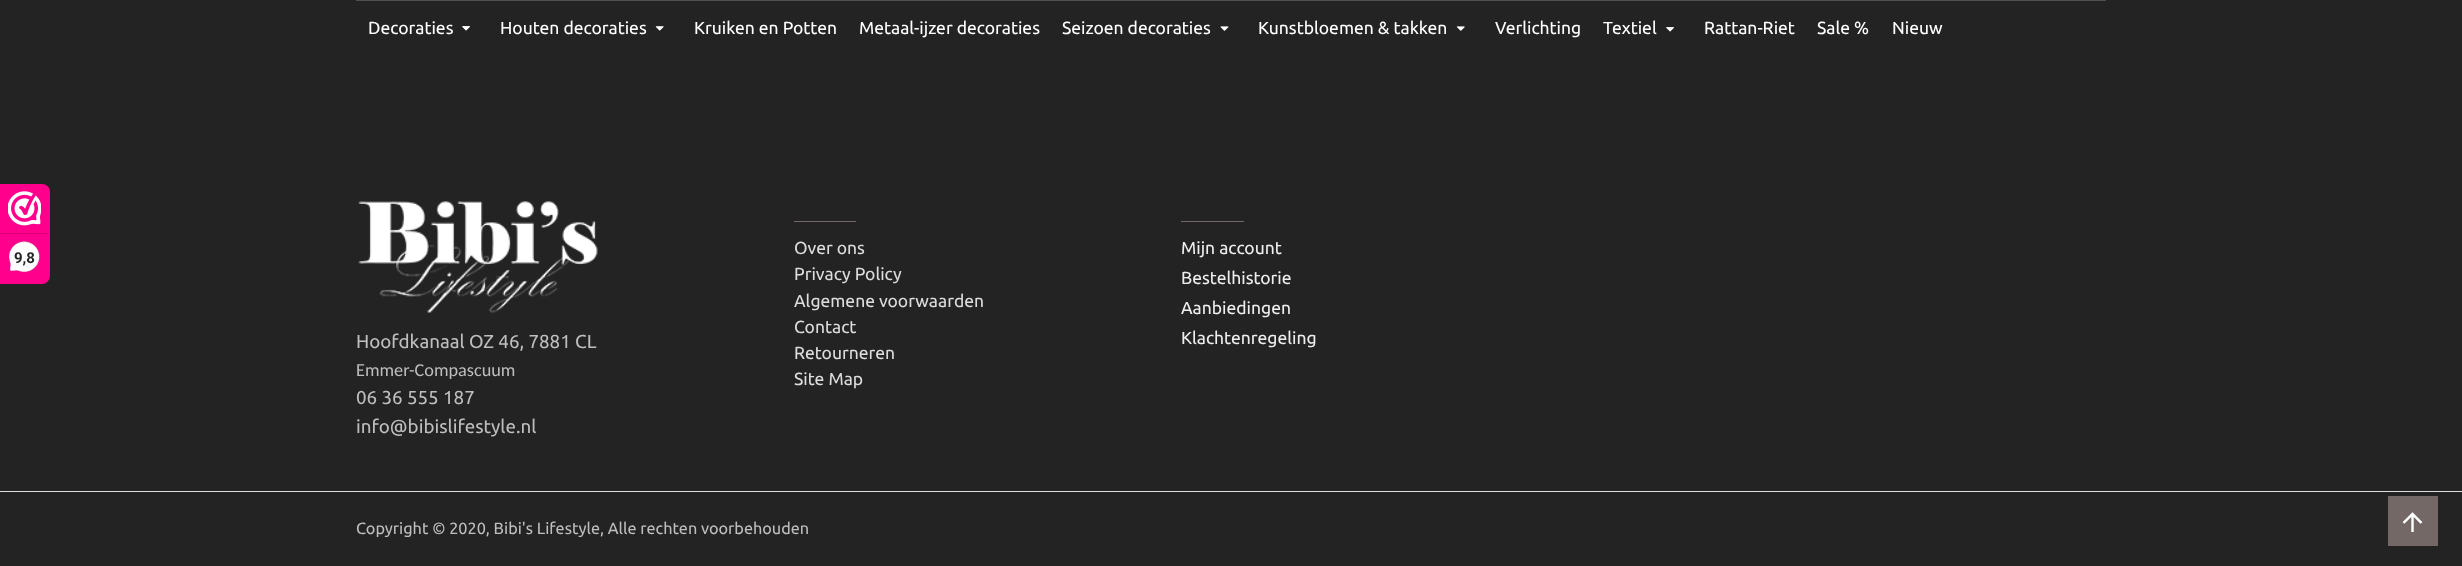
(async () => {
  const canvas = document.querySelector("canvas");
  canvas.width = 2462;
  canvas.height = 566;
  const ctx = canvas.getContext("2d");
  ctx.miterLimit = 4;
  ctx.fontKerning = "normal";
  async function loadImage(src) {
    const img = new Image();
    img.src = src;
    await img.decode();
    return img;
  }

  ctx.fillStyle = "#232323";
  ctx.fillRect(0, 0, 2462, 566);
  ctx.fillStyle = "#fe008c";
  ctx.beginPath();
  ctx.roundRect(0, 184, 50, 100, [0, 8, 8, 0]);
  ctx.fill();
  ctx.drawImage(await loadImage("img/1.png"), 8, 191, 33, 35);
  ctx.fillStyle = "#d80077";
  ctx.fillRect(0, 233, 49, 1);
  ctx.drawImage(await loadImage("img/2.png"), 9, 241, 31, 32);
  ctx.fillStyle = "#505050";
  ctx.fillRect(356, 0, 1750, 1);
  ctx.drawImage(await loadImage("img/3.png"), 462, 26, 8, 5);
  ctx.drawImage(await loadImage("img/4.png"), 655, 26, 9, 5);
  ctx.drawImage(await loadImage("img/5.png"), 1220, 26, 9, 5);
  ctx.drawImage(await loadImage("img/6.png"), 1456, 26, 9, 5);
  ctx.drawImage(await loadImage("img/7.png"), 1666, 27, 8, 5);
  ctx.fillStyle = "#736866";
  ctx.fillRect(794, 221, 62, 1);
  ctx.fillRect(1181, 221, 63, 1);
  ctx.drawImage(await loadImage("img/8.png"), 358, 201, 240, 112);
  ctx.fillStyle = "#dddddd";
  ctx.fillRect(0, 491, 2462, 1);
  ctx.fillStyle = "#736866";
  ctx.fillRect(2388, 496, 50, 50);
  ctx.drawImage(await loadImage("img/9.png"), 2402, 512, 21, 20);
  ctx.font = "bold 15px Roboto";
  ctx.fillStyle = "#272626";
  ctx.fillText("9,8", 14, 263);
  ctx.font = "17.5px Ubuntu";
  ctx.fillStyle = "#ffffff";
  for (const [text, x, y] of [
    ["Decoraties", 368, 34],
    ["Houten decoraties", 500, 34],
    ["Kruiken en Potten", 694, 34],
    ["Metaal-ijzer decoraties", 859, 34],
    ["Seizoen decoraties", 1062, 34],
    ["Kunstbloemen & takken", 1258, 34],
    ["Verlichting", 1495, 34],
    ["Textiel", 1603, 34],
    ["Rattan-Riet", 1704, 34],
    ["Sale %", 1817, 34],
    ["Nieuw", 1892, 34],
  ]) {
    ctx.fillText(text, x, y);
  }
  ctx.fillStyle = "#dddddd";
  for (const [text, x, y] of [
    ["Over ons", 794, 254],
    ["Privacy Policy", 794, 280],
    ["Algemene voorwaarden", 794, 307],
    ["Contact", 794, 333],
    ["Retourneren", 794, 359],
    ["Site Map", 794, 385],
  ]) {
    ctx.fillText(text, x, y);
  }
  ctx.fillStyle = "#eeeeee";
  for (const [text, x, y] of [
    ["Mijn account", 1181, 254],
    ["Bestelhistorie", 1181, 284],
    ["Aanbiedingen", 1181, 314],
    ["Klachtenregeling", 1181, 344],
  ]) {
    ctx.fillText(text, x, y);
  }
  ctx.font = "18.75px Ubuntu";
  ctx.fillStyle = "#bebebe";
  ctx.fillText("Hoofdkanaal OZ 46, 7881 CL", 356, 348);
  ctx.font = "18.25px Carlito";
  ctx.fillText("Emmer-Compascuum", 356, 376);
  ctx.font = "18.75px Ubuntu";
  ctx.fillText("06 36 555 187", 356, 404);
  ctx.fillText("info@bibislifestyle.nl", 356, 433);
  ctx.font = "16.25px Ubuntu";
  ctx.fillText("Copyright © 2020, Bibi's Lifestyle, Alle rechten voorbehouden", 356, 534);
})();
